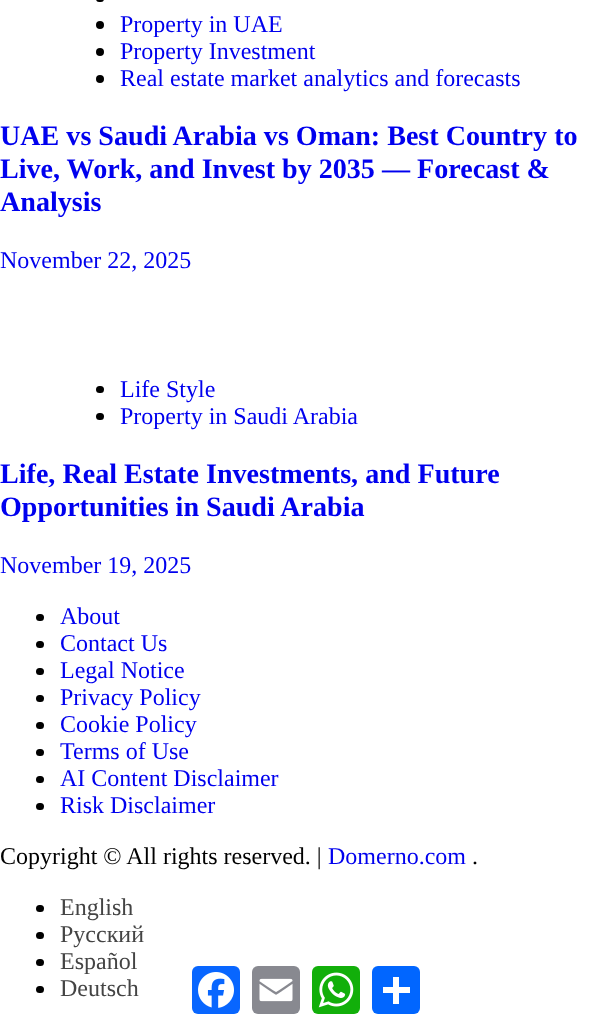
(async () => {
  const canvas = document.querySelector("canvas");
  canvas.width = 610;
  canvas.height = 1025;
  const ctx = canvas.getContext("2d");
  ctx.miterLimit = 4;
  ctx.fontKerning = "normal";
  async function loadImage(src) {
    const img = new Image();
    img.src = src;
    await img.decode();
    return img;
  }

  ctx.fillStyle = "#ffffff";
  ctx.fillRect(0, 0, 610, 1025);
  ctx.fillStyle = "#000000";
  ctx.beginPath();
  ctx.roundRect(96, -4, 8, 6, 4);
  ctx.fill();
  ctx.beginPath();
  ctx.arc(100, 25, 4, 0, Math.PI * 2);
  ctx.fill();
  ctx.beginPath();
  ctx.arc(100, 52, 4, 0, Math.PI * 2);
  ctx.fill();
  ctx.beginPath();
  ctx.arc(100, 79, 4, 0, Math.PI * 2);
  ctx.fill();
  ctx.beginPath();
  ctx.roundRect(96, 386, 8, 7, 3.5);
  ctx.fill();
  ctx.beginPath();
  ctx.roundRect(96, 413, 8, 7, 3.5);
  ctx.fill();
  ctx.beginPath();
  ctx.roundRect(36, 614, 8, 7, 3.5);
  ctx.fill();
  ctx.beginPath();
  ctx.roundRect(36, 641, 8, 7, 3.5);
  ctx.fill();
  ctx.beginPath();
  ctx.roundRect(36, 668, 8, 7, 3.5);
  ctx.fill();
  ctx.beginPath();
  ctx.roundRect(36, 695, 8, 7, 3.5);
  ctx.fill();
  ctx.beginPath();
  ctx.roundRect(36, 722, 8, 7, 3.5);
  ctx.fill();
  ctx.beginPath();
  ctx.roundRect(36, 749, 8, 7, 3.5);
  ctx.fill();
  ctx.beginPath();
  ctx.roundRect(36, 776, 8, 7, 3.5);
  ctx.fill();
  ctx.beginPath();
  ctx.roundRect(36, 803, 8, 7, 3.5);
  ctx.fill();
  ctx.beginPath();
  ctx.roundRect(36, 905, 8, 7, 3.5);
  ctx.fill();
  ctx.beginPath();
  ctx.roundRect(36, 932, 8, 7, 3.5);
  ctx.fill();
  ctx.beginPath();
  ctx.roundRect(36, 959, 8, 7, 3.5);
  ctx.fill();
  ctx.beginPath();
  ctx.roundRect(36, 986, 8, 7, 3.5);
  ctx.fill();
  ctx.fillStyle = "#0866ff";
  ctx.beginPath();
  ctx.roundRect(192, 966, 48, 48, 6);
  ctx.fill();
  ctx.drawImage(await loadImage("img/1.png"), 198, 972, 36, 36);
  ctx.fillStyle = "#888990";
  ctx.beginPath();
  ctx.roundRect(252, 966, 48, 48, 6);
  ctx.fill();
  ctx.drawImage(await loadImage("img/2.png"), 259, 978, 34, 24);
  ctx.fillStyle = "#12af0a";
  ctx.beginPath();
  ctx.roundRect(312, 966, 48, 48, 6);
  ctx.fill();
  ctx.drawImage(await loadImage("img/3.png"), 318, 972, 36, 36);
  ctx.fillStyle = "#0166ff";
  ctx.beginPath();
  ctx.roundRect(372, 966, 48, 48, 6);
  ctx.fill();
  ctx.fillStyle = "#ffffff";
  ctx.fillRect(393, 977, 6, 27);
  ctx.fillRect(383, 987, 27, 6);
  ctx.font = "24px Liberation Serif";
  ctx.fillStyle = "#0000ee";
  for (const [text, x, y] of [
    ["Property in UAE", 120, 32],
    ["Property Investment", 120, 59],
    ["Real estate market analytics and forecasts", 120, 86],
  ]) {
    ctx.fillText(text, x, y);
  }
  ctx.font = "bold 28.1px Liberation Serif";
  for (const [text, x, y] of [
    ["UAE vs Saudi Arabia vs Oman: Best Country to", 0, 145],
    ["Live, Work, and Invest by 2035 — Forecast &", 0, 178],
    ["Analysis", 0, 211],
  ]) {
    ctx.fillText(text, x, y);
  }
  ctx.font = "24px Liberation Serif";
  for (const [text, x, y] of [
    ["November 22, 2025", 0, 268],
    ["Life Style", 120, 397],
    ["Property in Saudi Arabia", 120, 424],
  ]) {
    ctx.fillText(text, x, y);
  }
  ctx.font = "bold 28.1px Liberation Serif";
  ctx.fillText("Life, Real Estate Investments, and Future", 0, 483);
  ctx.fillText("Opportunities in Saudi Arabia", 0, 516);
  ctx.font = "24px Liberation Serif";
  for (const [text, x, y] of [
    ["November 19, 2025", 0, 573],
    ["About", 60, 624],
    ["Contact Us", 60, 651],
    ["Legal Notice", 60, 678],
    ["Privacy Policy", 60, 705],
    ["Cookie Policy", 60, 732],
    ["Terms of Use", 60, 759],
    ["AI Content Disclaimer", 60, 786],
    ["Risk Disclaimer", 60, 813],
  ]) {
    ctx.fillText(text, x, y);
  }
  ctx.fillStyle = "#000000";
  ctx.fillText("Copyright © All rights reserved. |", 0, 864);
  ctx.fillStyle = "#0000ee";
  ctx.fillText("Domerno.com", 328, 864);
  ctx.fillStyle = "#000000";
  ctx.fillText(".", 472, 864);
  ctx.fillStyle = "#444444";
  for (const [text, x, y] of [
    ["English", 60, 915],
    ["Русский", 60, 942],
    ["Español", 60, 969],
    ["Deutsch", 60, 996],
  ]) {
    ctx.fillText(text, x, y);
  }
})();
